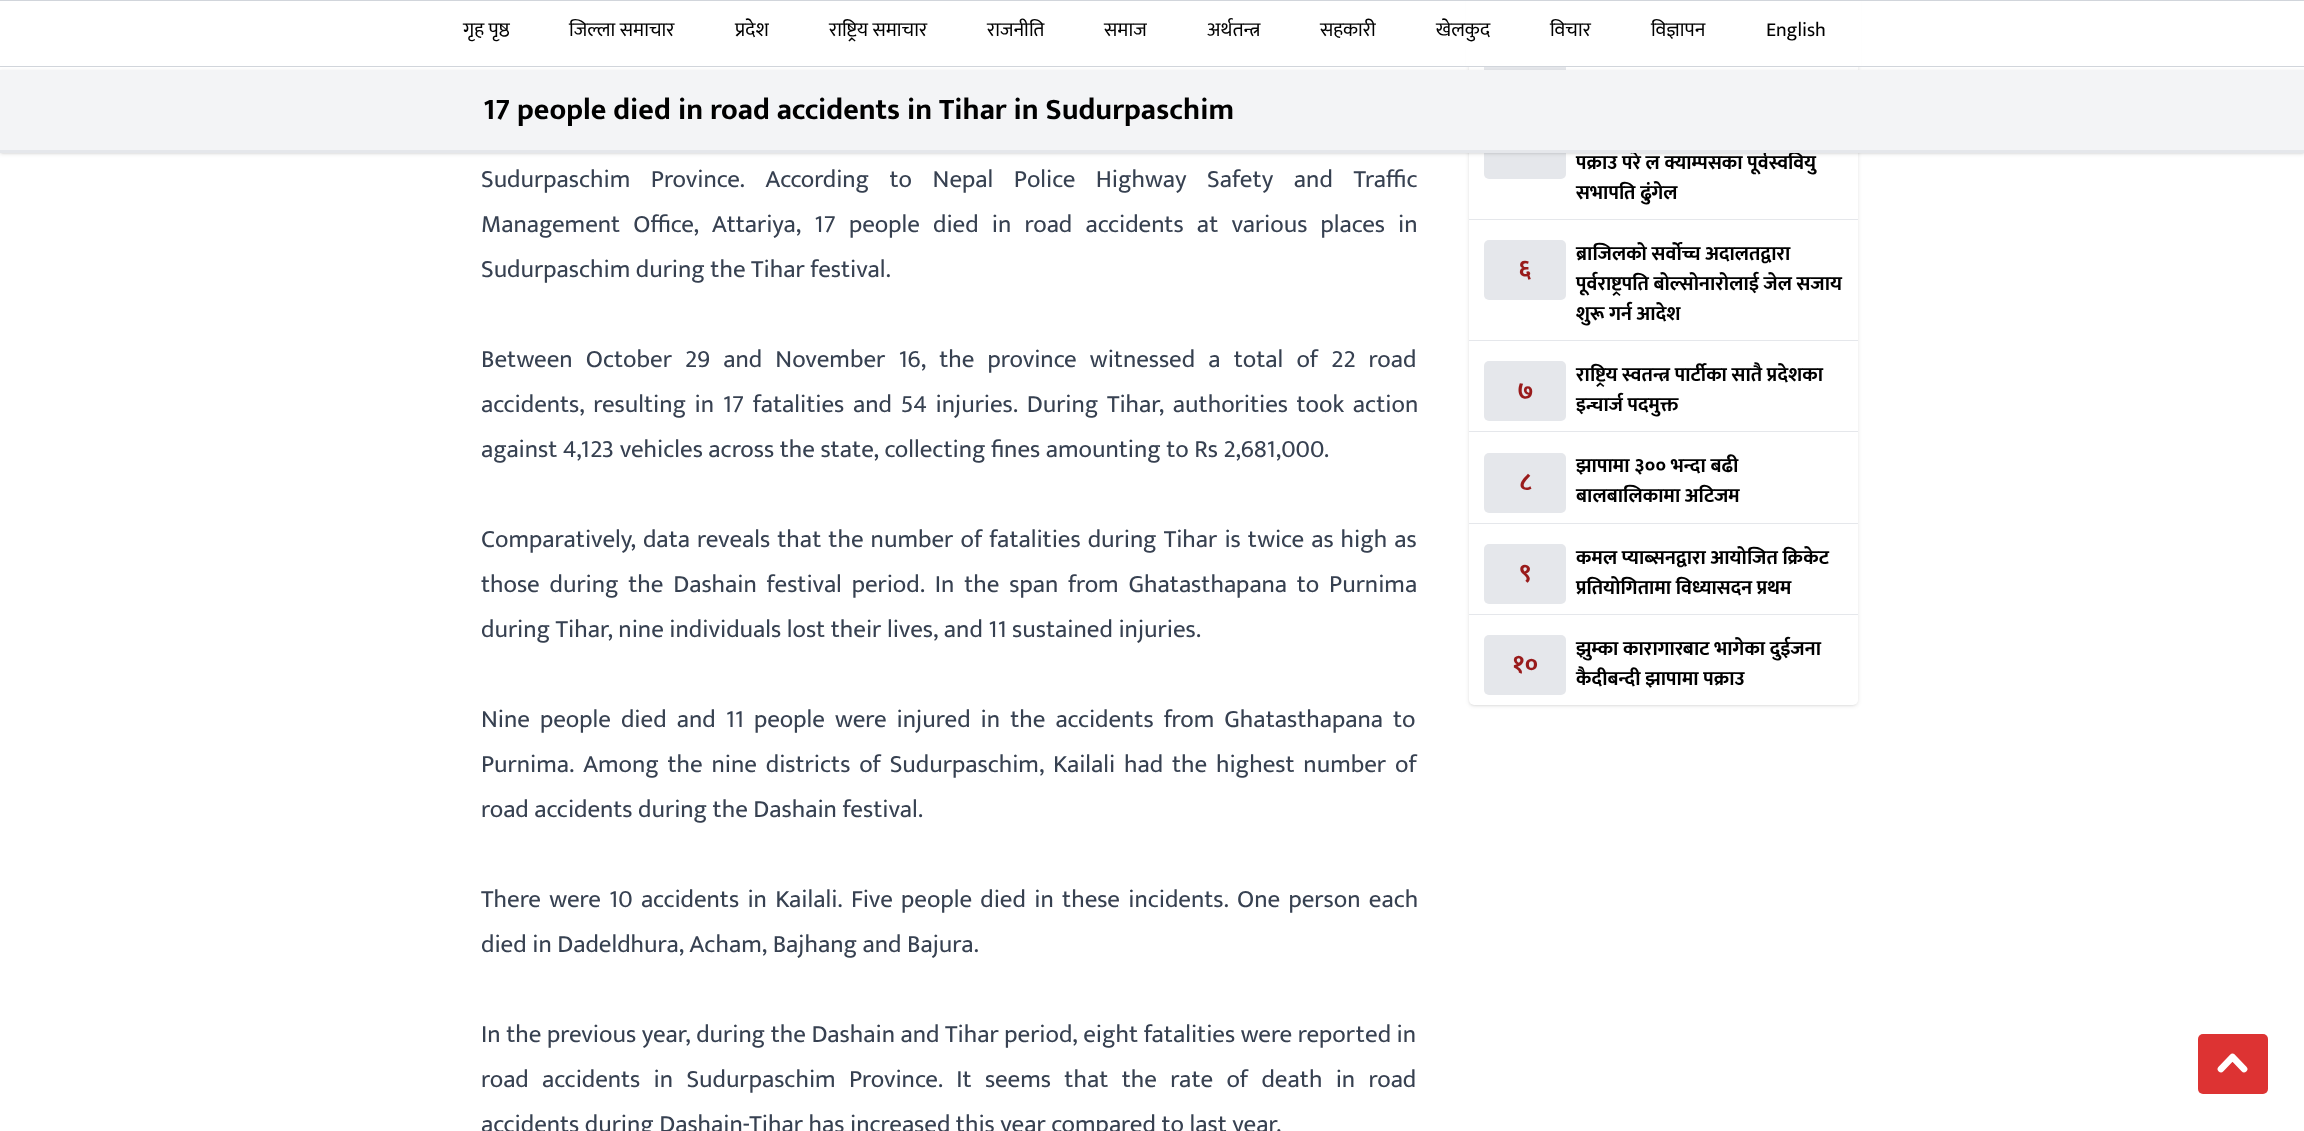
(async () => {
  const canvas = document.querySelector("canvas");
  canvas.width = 2304;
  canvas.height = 1131;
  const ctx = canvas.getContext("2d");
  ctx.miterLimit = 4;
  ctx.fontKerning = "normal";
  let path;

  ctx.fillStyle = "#ffffff";
  ctx.fillRect(0, 0, 2304, 1131);
  ctx.fillStyle = "rgba(0, 0, 0, 0.1)";
  ctx.filter = "blur(1px)";
  ctx.beginPath();
  ctx.roundRect(1470, -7, 386, 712, 4);
  ctx.fill();
  ctx.filter = "none";
  ctx.filter = "blur(2px)";
  ctx.beginPath();
  ctx.roundRect(1469, -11, 389, 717, 5);
  ctx.fill();
  ctx.filter = "none";
  ctx.fillStyle = "#ffffff";
  ctx.beginPath();
  ctx.roundRect(1469, -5, 389, 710, 5);
  ctx.fill();
  ctx.fillStyle = "#e5e7eb";
  ctx.fillRect(1484, 67, 82, 3);
  ctx.beginPath();
  ctx.roundRect(1484, 119, 82, 60, 5);
  ctx.fill();
  ctx.fillStyle = "rgba(0, 0, 0, 0.1)";
  ctx.filter = "blur(2px)";
  ctx.beginPath();
  ctx.rect(0, 71, 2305, 83);
  ctx.fill();
  ctx.filter = "none";
  for (const [x, y, w, h, color] of [
    [1466, 1, 395, 65, "#ffffff"],
    [0, 0, 2304, 1, "#d1d5db"],
    [0, 66, 2304, 1, "#d1d5db"],
  ]) {
    ctx.fillStyle = color;
    ctx.fillRect(x, y, w, h);
  }
  ctx.fillStyle = "rgba(0, 0, 0, 0.1)";
  ctx.filter = "blur(1px)";
  ctx.beginPath();
  ctx.rect(1, 73, 2303, 80);
  ctx.fill();
  ctx.filter = "none";
  ctx.fillStyle = "#f3f4f6";
  ctx.fillRect(0, 70, 2304, 80);
  ctx.fillStyle = "#e5e7eb";
  ctx.fillRect(1469, 219, 389, 1);
  ctx.beginPath();
  ctx.roundRect(1484, 240, 82, 60, 5);
  ctx.fill();
  ctx.fillRect(1469, 340, 389, 1);
  ctx.beginPath();
  ctx.roundRect(1484, 361, 82, 60, 5);
  ctx.fill();
  ctx.fillRect(1469, 431, 389, 1);
  ctx.beginPath();
  ctx.roundRect(1484, 453, 82, 60, 5);
  ctx.fill();
  ctx.fillRect(1469, 523, 389, 1);
  ctx.beginPath();
  ctx.roundRect(1484, 544, 82, 60, 5);
  ctx.fill();
  ctx.fillRect(1469, 614, 389, 1);
  ctx.beginPath();
  ctx.roundRect(1484, 635, 82, 60, 5);
  ctx.fill();
  ctx.fillStyle = "#dd3333";
  ctx.beginPath();
  ctx.roundRect(2198, 1034, 70, 60, 5);
  ctx.fill();
  path = new Path2D("M2221 1069L2232.5 1057L2244 1069");
  ctx.strokeStyle = "#ffffff";
  ctx.lineWidth = 6.7;
  ctx.lineCap = "round";
  ctx.lineJoin = "round";
  ctx.stroke(path);
  ctx.font = "20px Mukta";
  ctx.fillStyle = "#000000";
  for (const [text, x, y] of [
    ["गृह पृष्ठ", 463, 36],
    ["जिल्ला समाचार", 569, 36],
    ["प्रदेश", 735, 36],
    ["राष्ट्रिय समाचार", 829, 36],
    ["राजनीति", 987, 36],
    ["समाज", 1104, 36],
    ["अर्थतन्त्र", 1207, 36],
    ["सहकारी", 1320, 36],
    ["खेलकुद", 1436, 36],
    ["विचार", 1550, 36],
    ["विज्ञापन", 1651, 36],
    ["English", 1766, 36],
  ]) {
    ctx.fillText(text, x, y);
  }
  ctx.font = "bold 30px Mukta";
  ctx.fillText("17 people died in road accidents in Tihar in Sudurpaschim", 483, 119);
  ctx.wordSpacing = "15px";
  ctx.font = "25px Mukta";
  ctx.fillStyle = "#374151";
  ctx.fillText("Sudurpaschim Province. According to Nepal Police Highway Safety and Traffic", 481, 187);
  ctx.wordSpacing = "7.6px";
  ctx.fillText("Management Office, Attariya, 17 people died in road accidents at various places in", 481, 232);
  ctx.wordSpacing = "0px";
  ctx.fillText("Sudurpaschim during the Tihar festival.", 481, 277);
  ctx.wordSpacing = "7.6px";
  ctx.fillText("Between October 29 and November 16, the province witnessed a total of 22 road", 481, 367);
  ctx.wordSpacing = "3.1px";
  ctx.fillText("accidents, resulting in 17 fatalities and 54 injuries. During Tihar, authorities took action", 481, 412);
  ctx.wordSpacing = "0px";
  ctx.fillText("against 4,123 vehicles across the state, collecting fines amounting to Rs 2,681,000.", 481, 457);
  ctx.wordSpacing = "1.5px";
  ctx.fillText("Comparatively, data reveals that the number of fatalities during Tihar is twice as high as", 481, 547);
  ctx.wordSpacing = "4.25px";
  ctx.fillText("those during the Dashain festival period. In the span from Ghatasthapana to Purnima", 481, 592);
  ctx.wordSpacing = "0px";
  ctx.fillText("during Tihar, nine individuals lost their lives, and 11 sustained injuries.", 481, 637);
  ctx.wordSpacing = "4.5px";
  ctx.fillText("Nine people died and 11 people were injured in the accidents from Ghatasthapana to", 481, 727);
  ctx.wordSpacing = "3.25px";
  ctx.fillText("Purnima. Among the nine districts of Sudurpaschim, Kailali had the highest number of", 481, 772);
  ctx.wordSpacing = "0px";
  ctx.fillText("road accidents during the Dashain festival.", 481, 817);
  ctx.wordSpacing = "2.75px";
  ctx.fillText("There were 10 accidents in Kailali. Five people died in these incidents. One person each", 481, 907);
  ctx.wordSpacing = "0px";
  ctx.fillText("died in Dadeldhura, Acham, Bajhang and Bajura.", 481, 952);
  ctx.fillText("In the previous year, during the Dashain and Tihar period, eight fatalities were reported in", 481, 1042);
  ctx.wordSpacing = "7.75px";
  ctx.fillText("road accidents in Sudurpaschim Province. It seems that the rate of death in road", 481, 1087);
  ctx.wordSpacing = "0px";
  ctx.fillText("accidents during Dashain-Tihar has increased this year compared to last year.", 481, 1132);
  ctx.font = "bold 20px Mukta";
  ctx.fillStyle = "#000000";
  ctx.fillText("पक्राउ परे ल क्याम्पसका पूर्वस्ववियु", 1576, 169);
  ctx.fillStyle = "#e5e7eb";
  ctx.fillRect(0, 150, 2304, 3);
  ctx.fillStyle = "#000000";
  ctx.fillText("सभापति ढुंगेल", 1576, 199);
  ctx.font = "bold 25px Mukta";
  ctx.fillStyle = "#991b1b";
  ctx.fillText("६", 1518, 277);
  ctx.font = "bold 20px Mukta";
  ctx.fillStyle = "#000000";
  for (const [text, x, y] of [
    ["ब्राजिलको सर्वोच्च अदालतद्वारा", 1576, 260],
    ["पूर्वराष्ट्रपति बोल्सोनारोलाई जेल सजाय", 1576, 290],
    ["शुरू गर्न आदेश", 1576, 320],
  ]) {
    ctx.fillText(text, x, y);
  }
  ctx.font = "bold 25px Mukta";
  ctx.fillStyle = "#991b1b";
  ctx.fillText("७", 1517, 399);
  ctx.font = "bold 20px Mukta";
  ctx.fillStyle = "#000000";
  ctx.fillText("राष्ट्रिय स्वतन्त्र पार्टीका सातै प्रदेशका", 1576, 381);
  ctx.fillText("इन्चार्ज पदमुक्त", 1576, 411);
  ctx.font = "bold 25px Mukta";
  ctx.fillStyle = "#991b1b";
  ctx.fillText("८", 1519, 490);
  ctx.font = "bold 20px Mukta";
  ctx.fillStyle = "#000000";
  ctx.fillText("झापामा ३०० भन्दा बढी", 1576, 472);
  ctx.fillText("बालबालिकामा अटिजम", 1576, 502);
  ctx.font = "bold 25px Mukta";
  ctx.fillStyle = "#991b1b";
  ctx.fillText("९", 1519, 581);
  ctx.font = "bold 20px Mukta";
  ctx.fillStyle = "#000000";
  ctx.fillText("कमल प्याब्सनद्वारा आयोजित क्रिकेट", 1576, 564);
  ctx.fillText("प्रतियोगितामा विध्यासदन प्रथम", 1576, 594);
  ctx.font = "bold 25px Mukta";
  ctx.fillStyle = "#991b1b";
  ctx.fillText("१०", 1512, 672);
  ctx.font = "bold 20px Mukta";
  ctx.fillStyle = "#000000";
  ctx.fillText("झुम्का कारागारबाट भागेका दुईजना", 1576, 655);
  ctx.fillText("कैदीबन्दी झापामा पक्राउ", 1576, 685);
})();
